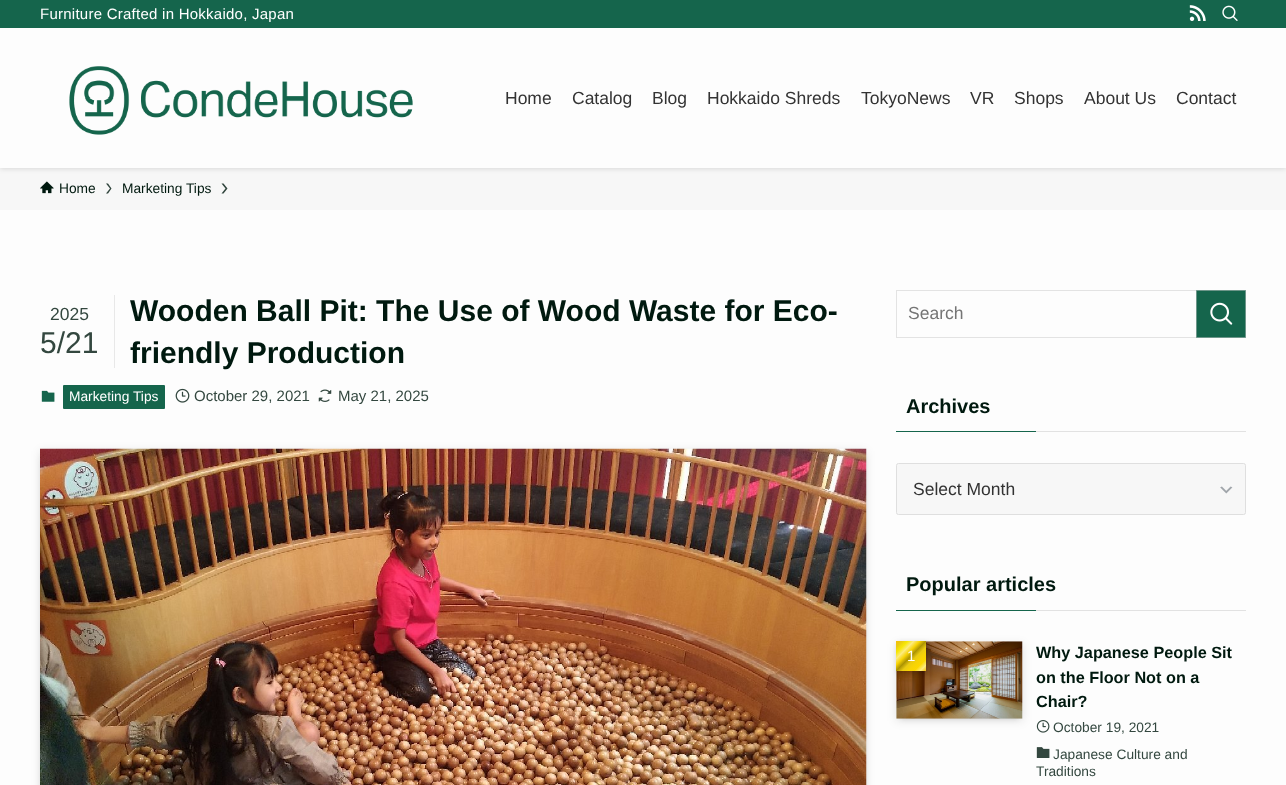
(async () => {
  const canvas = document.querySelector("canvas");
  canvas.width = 1286;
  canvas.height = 785;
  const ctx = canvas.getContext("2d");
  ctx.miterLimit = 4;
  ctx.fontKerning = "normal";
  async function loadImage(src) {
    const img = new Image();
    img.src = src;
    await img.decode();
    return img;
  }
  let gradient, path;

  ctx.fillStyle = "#fdfdfd";
  ctx.fillRect(0, 0, 1286, 785);
  ctx.fillStyle = "#f7f7f7";
  ctx.fillRect(0, 168, 1286, 42);
  ctx.fillStyle = "rgba(0, 0, 0, 0.12)";
  ctx.filter = "blur(2.5px)";
  ctx.beginPath();
  ctx.rect(0, 1, 1286, 168);
  ctx.fill();
  ctx.filter = "none";
  ctx.fillStyle = "#fdfdfd";
  ctx.fillRect(0, 28, 1286, 140);
  ctx.fillStyle = "#15654c";
  ctx.fillRect(0, 0, 1286, 28);
  ctx.drawImage(await loadImage("img/1.png"), 1189, 5, 17, 16);
  ctx.drawImage(await loadImage("img/2.png"), 1222, 5, 16, 16);
  ctx.drawImage(await loadImage("img/3.png"), 69, 66, 344, 69);
  ctx.drawImage(await loadImage("img/4.png"), 40, 181, 14, 13);
  ctx.fillStyle = "#31453d";
  path = new Path2D("M108 183.5H106L110 188.5L106 193.5H108L111.5 188.5Z");
  ctx.fill(path);
  path = new Path2D("M223.5 183.5H221.5L225.5 188.5L221.5 193.5H223.5L227.5 188.5Z");
  ctx.fill(path);
  ctx.fillStyle = "#e8e8e8";
  ctx.fillRect(114, 295, 1, 73);
  ctx.drawImage(await loadImage("img/5.png"), 41, 390, 14, 12);
  ctx.fillStyle = "#15654c";
  ctx.beginPath();
  ctx.roundRect(63, 385, 102, 24, 1);
  ctx.fill();
  ctx.drawImage(await loadImage("img/6.png"), 175, 388, 15, 15);
  ctx.drawImage(await loadImage("img/7.png"), 318, 389, 14, 13);
  ctx.fillStyle = "rgba(0, 0, 0, 0.2)";
  ctx.filter = "blur(5px)";
  ctx.beginPath();
  ctx.rect(45, 459, 816, 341);
  ctx.fill();
  ctx.filter = "none";
  ctx.fillStyle = "rgba(0, 0, 0, 0.1)";
  ctx.filter = "blur(5px)";
  ctx.beginPath();
  ctx.rect(40, 451, 826, 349);
  ctx.fill();
  ctx.filter = "none";
  ctx.drawImage(await loadImage("img/8.png"), 40, 448, 827, 337);
  ctx.strokeStyle = "#e3e3e3";
  ctx.strokeRect(896.5, 290.5, 349, 47);
  ctx.fillStyle = "#15654c";
  ctx.beginPath();
  ctx.rect(1196.5, 290.5, 49, 47);
  ctx.fill();
  ctx.strokeStyle = "#6e968a";
  ctx.stroke();
  ctx.drawImage(await loadImage("img/9.png"), 1210, 302, 23, 23);
  ctx.fillRect(896, 431, 140, 1);
  ctx.fillStyle = "#e2e2e2";
  ctx.fillRect(1036, 431, 210, 1);
  ctx.fillStyle = "#f7f7f7";
  ctx.beginPath();
  ctx.roundRect(896, 463, 350, 52, 2.5);
  ctx.fill();
  ctx.drawImage(await loadImage("img/10.png"), 1220, 486, 13, 8);
  ctx.beginPath();
  ctx.roundRect(896.5, 463.5, 349, 51, 2);
  ctx.strokeStyle = "#dfdfdf";
  ctx.stroke();
  ctx.fillStyle = "#15654c";
  ctx.fillRect(896, 610, 140, 1);
  ctx.fillStyle = "#e2e2e2";
  ctx.fillRect(1036, 610, 210, 1);
  ctx.fillStyle = "rgba(0, 0, 0, 0.1)";
  ctx.filter = "blur(2.5px)";
  ctx.beginPath();
  ctx.rect(901, 651, 117, 68);
  ctx.fill();
  ctx.filter = "none";
  ctx.filter = "blur(5px)";
  ctx.beginPath();
  ctx.rect(896, 644, 127, 77);
  ctx.fill();
  ctx.filter = "none";
  ctx.drawImage(await loadImage("img/11.png"), 896, 641, 127, 78);
  ctx.fillStyle = "rgba(0, 0, 0, 0.2)";
  ctx.filter = "blur(2.5px)";
  ctx.beginPath();
  ctx.rect(898, 643, 30, 30);
  ctx.fill();
  ctx.filter = "none";
  gradient = ctx.createLinearGradient(926, 671, 896, 641);
  gradient.addColorStop(0, "#f7bf05");
  gradient.addColorStop(0.1, "#fcea7f");
  gradient.addColorStop(0.2, "#fcd700");
  gradient.addColorStop(0.3, "#f7d305");
  gradient.addColorStop(0.4, "#eaca12");
  gradient.addColorStop(0.5, "#ac9303");
  gradient.addColorStop(0.6, "#f7d305");
  gradient.addColorStop(0.7, "#fcea7f");
  gradient.addColorStop(0.8, "#f7e705");
  gradient.addColorStop(0.9, "#eaca12");
  gradient.addColorStop(1, "#f7bf05");
  ctx.fillStyle = gradient;
  ctx.fillRect(896, 641, 30, 30);
  ctx.drawImage(await loadImage("img/12.png"), 1036, 720, 14, 13);
  ctx.drawImage(await loadImage("img/13.png"), 1036, 747, 14, 11);
  ctx.letterSpacing = "0.25px";
  ctx.font = "15px Liberation Sans";
  ctx.fillStyle = "#ffffff";
  ctx.fillText("Furniture Crafted in Hokkaido, Japan", 40, 19);
  ctx.letterSpacing = "0px";
  ctx.font = "17.5px Liberation Sans";
  ctx.fillStyle = "#333333";
  for (const [text, x, y] of [
    ["Home", 505, 104],
    ["Catalog", 572, 104],
    ["Blog", 652, 104],
    ["Hokkaido Shreds", 707, 104],
    ["TokyoNews", 861, 104],
    ["VR", 970, 104],
    ["Shops", 1014, 104],
    ["About Us", 1084, 104],
    ["Contact", 1176, 104],
  ]) {
    ctx.fillText(text, x, y);
  }
  ctx.font = "13.75px Liberation Sans";
  ctx.fillStyle = "#00190f";
  ctx.fillText("Home", 59, 193);
  ctx.fillText("Marketing Tips", 122, 193);
  ctx.font = "17.5px Liberation Sans";
  ctx.fillStyle = "#33473f";
  ctx.fillText("2025", 50, 320);
  ctx.font = "30px Liberation Sans";
  ctx.fillText("5/21", 40, 353);
  ctx.font = "bold 30px Liberation Sans";
  ctx.fillStyle = "#00190f";
  ctx.fillText("Wooden Ball Pit: The Use of Wood Waste for Eco-", 130, 321);
  ctx.fillText("friendly Production", 130, 363);
  ctx.font = "13.75px Liberation Sans";
  ctx.fillStyle = "#ffffff";
  ctx.fillText("Marketing Tips", 69, 401);
  ctx.font = "15px Liberation Sans";
  ctx.fillStyle = "#33473f";
  ctx.fillText("October 29, 2021", 194, 401);
  ctx.fillText("May 21, 2025", 338, 401);
  ctx.font = "17.5px Liberation Sans";
  ctx.fillStyle = "#757575";
  ctx.fillText("Search", 908, 319);
  ctx.font = "bold 20px Liberation Sans";
  ctx.fillStyle = "#00190f";
  ctx.fillText("Archives", 906, 413);
  ctx.font = "17.5px Liberation Sans";
  ctx.fillStyle = "#333333";
  ctx.fillText("Select Month", 913, 495);
  ctx.font = "bold 20px Liberation Sans";
  ctx.fillStyle = "#00190f";
  ctx.fillText("Popular articles", 906, 591);
  ctx.font = "15px Liberation Sans";
  ctx.fillStyle = "#ffffff";
  ctx.fillText("1", 907, 661);
  ctx.font = "bold 16.25px Liberation Sans";
  ctx.fillStyle = "#00190f";
  for (const [text, x, y] of [
    ["Why Japanese People Sit", 1036, 658],
    ["on the Floor Not on a", 1036, 683],
    ["Chair?", 1036, 707],
  ]) {
    ctx.fillText(text, x, y);
  }
  ctx.font = "13.75px Liberation Sans";
  ctx.fillStyle = "#33473f";
  for (const [text, x, y] of [
    ["October 19, 2021", 1053, 732],
    ["Japanese Culture and", 1053, 759],
    ["Traditions", 1036, 776],
  ]) {
    ctx.fillText(text, x, y);
  }
})();
